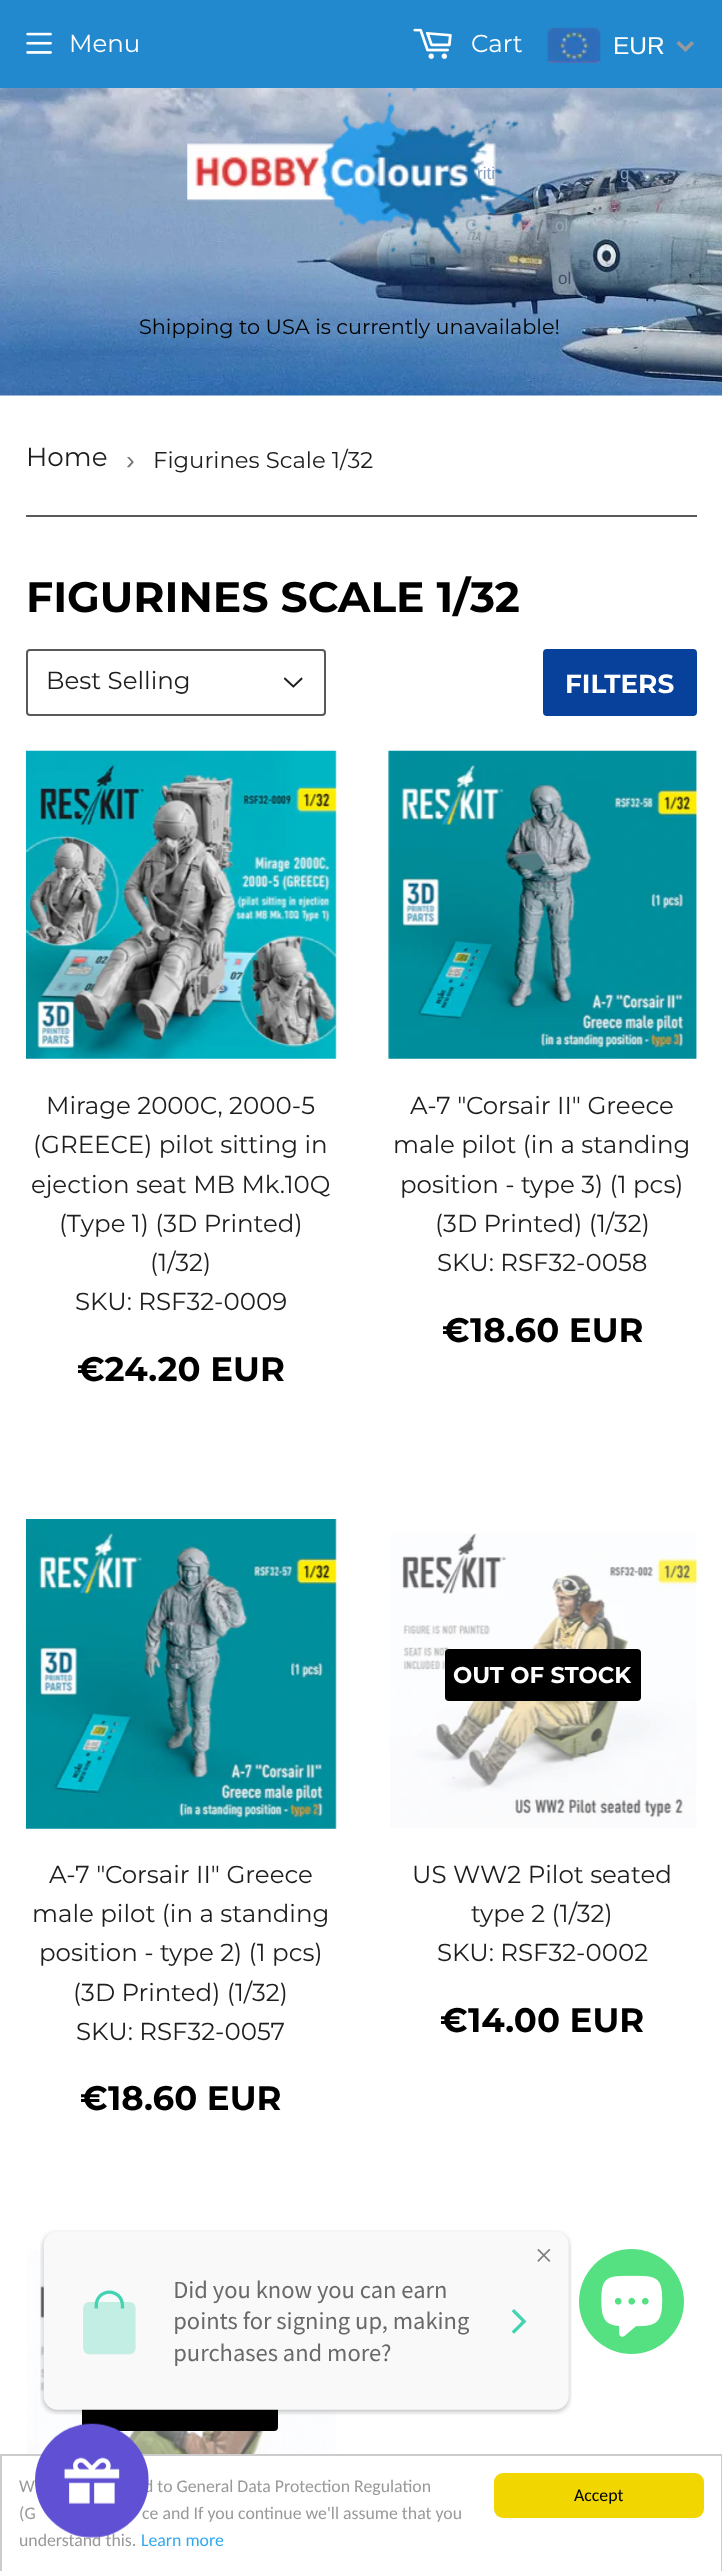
(async () => {
  const canvas = document.querySelector("canvas");
  canvas.width = 722;
  canvas.height = 2571;
  const ctx = canvas.getContext("2d");
  ctx.miterLimit = 4;
  ctx.fontKerning = "normal";
  async function loadImage(src) {
    const img = new Image();
    img.src = src;
    await img.decode();
    return img;
  }
  let path;

  ctx.fillStyle = "#ffffff";
  ctx.fillRect(0, 0, 722, 2571);
  ctx.fillStyle = "#2289ce";
  ctx.fillRect(0, 0, 722, 88);
  ctx.drawImage(await loadImage("img/1.png"), 26, 32, 26, 22);
  ctx.drawImage(await loadImage("img/2.png"), 413, 28, 39, 31);
  ctx.drawImage(await loadImage("img/3.png"), 547, 27, 54, 36);
  ctx.fillStyle = "#999999";
  path = new Path2D("M691.5 41L694 43.5L685.5 52L683 49.5Z");
  ctx.fill(path);
  path = new Path2D("M679 41L688 49.5L685.5 52L676.5 43.5Z");
  ctx.fill(path);
  ctx.drawImage(await loadImage("img/4.png"), 0, 88, 722, 308);
  ctx.drawImage(await loadImage("img/5.png"), 187, 88, 351, 166);
  ctx.fillStyle = "#5a5959";
  ctx.fillRect(26, 515, 671, 2);
  ctx.drawImage(await loadImage("img/6.png"), 284, 677, 19, 11);
  ctx.beginPath();
  ctx.roundRect(27, 650, 298, 65, 3);
  ctx.strokeStyle = "#5a5959";
  ctx.lineWidth = 2;
  ctx.stroke();
  ctx.fillStyle = "#07419b";
  ctx.beginPath();
  ctx.roundRect(543, 649, 154, 67, 4);
  ctx.fill();
  ctx.drawImage(await loadImage("img/7.png"), 26, 750, 311, 309);
  ctx.drawImage(await loadImage("img/8.png"), 388, 750, 309, 309);
  ctx.drawImage(await loadImage("img/9.png"), 26, 1519, 311, 310);
  ctx.drawImage(await loadImage("img/10.png"), 390, 1533, 307, 295);
  ctx.fillStyle = "#000000";
  ctx.beginPath();
  ctx.roundRect(445, 1649, 196, 52, 4);
  ctx.fill();
  ctx.drawImage(await loadImage("img/11.png"), 27, 2249, 310, 205);
  ctx.beginPath();
  ctx.roundRect(82, 2377, 196, 54, 4);
  ctx.fill();
  ctx.drawImage(await loadImage("img/12.png"), 40, 2230, 532, 185);
  ctx.fillStyle = "#55e182";
  ctx.beginPath();
  ctx.arc(631.5, 2301.5, 52.5, 0, Math.PI * 2);
  ctx.fill();
  ctx.drawImage(await loadImage("img/13.png"), 601, 2275, 62, 62);
  ctx.strokeStyle = "#cccccc";
  ctx.strokeRect(1, 2455, 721, 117);
  ctx.fillStyle = "#f1d600";
  ctx.beginPath();
  ctx.roundRect(494, 2473, 210, 45, 9);
  ctx.fill();
  ctx.font = "100 24.5px Montserrat";
  ctx.fillStyle = "#ffffff";
  ctx.fillText("Menu", 69, 52);
  ctx.fillText("Cart", 471, 52);
  ctx.font = "24.5px Liberation Sans";
  ctx.fillText("EUR", 613, 54);
  ctx.font = "17px Liberation Sans";
  ctx.fillStyle = "#87a0bb";
  ctx.fillText("riti", 477, 179);
  ctx.fillText("g", 620, 179);
  ctx.fillStyle = "#99a8b6";
  ctx.fillText("C", 465, 231);
  ctx.fillText("ol", 555, 231);
  ctx.fillStyle = "#3e5068";
  ctx.fillText("ol", 558, 284);
  ctx.font = "100 20.8px Montserrat";
  ctx.fillStyle = "#000000";
  ctx.fillText("Shipping to USA is currently unavailable!", 139, 334);
  ctx.font = "100 26.25px Montserrat";
  ctx.fillStyle = "#201d1d";
  ctx.fillText("Home", 26, 466);
  ctx.font = "26.25px Liberation Sans";
  ctx.fillStyle = "#767676";
  ctx.fillText("›", 126, 469);
  ctx.font = "100 22.75px Montserrat";
  ctx.fillStyle = "#201d1d";
  ctx.fillText("Figurines Scale 1/32", 153, 468);
  ctx.font = "bold 42.5px Montserrat";
  ctx.fillStyle = "#000000";
  ctx.fillText("FIGURINES SCALE 1/32", 26, 612);
  ctx.font = "100 24.5px Montserrat";
  ctx.fillStyle = "#201d1d";
  ctx.fillText("Best Selling", 46, 689);
  ctx.font = "bold 26.25px Montserrat";
  ctx.fillStyle = "#ffffff";
  ctx.fillText("FILTERS", 565, 693);
  ctx.font = "100 24.5px Montserrat";
  ctx.fillStyle = "#201d1d";
  for (const [text, x, y] of [
    ["Mirage 2000C, 2000-5", 46, 1114],
    ["(GREECE) pilot sitting in", 33, 1153],
    ["ejection seat MB Mk.10Q", 31, 1193],
    ["(Type 1) (3D Printed)", 59, 1232],
    ["(1/32)", 150, 1271],
    ["SKU: RSF32-0009", 75, 1310],
  ]) {
    ctx.fillText(text, x, y);
  }
  ctx.font = "bold 34px Montserrat";
  ctx.fillStyle = "#000000";
  ctx.fillText("€24.20 EUR", 77, 1381);
  ctx.font = "100 24.5px Montserrat";
  ctx.fillStyle = "#201d1d";
  for (const [text, x, y] of [
    ["A-7 \"Corsair II\" Greece", 410, 1114],
    ["male pilot (in a standing", 393, 1153],
    ["position - type 3) (1 pcs)", 400, 1193],
    ["(3D Printed) (1/32)", 435, 1232],
    ["SKU: RSF32-0058", 437, 1271],
  ]) {
    ctx.fillText(text, x, y);
  }
  ctx.font = "bold 34px Montserrat";
  ctx.fillStyle = "#000000";
  ctx.fillText("€18.60 EUR", 442, 1342);
  ctx.font = "100 24.5px Montserrat";
  ctx.fillStyle = "#201d1d";
  for (const [text, x, y] of [
    ["A-7 \"Corsair II\" Greece", 49, 1883],
    ["male pilot (in a standing", 32, 1922],
    ["position - type 2) (1 pcs)", 39, 1961],
    ["(3D Printed) (1/32)", 73, 2001],
    ["SKU: RSF32-0057", 76, 2040],
  ]) {
    ctx.fillText(text, x, y);
  }
  ctx.font = "bold 34px Montserrat";
  ctx.fillStyle = "#000000";
  ctx.fillText("€18.60 EUR", 80, 2110);
  ctx.font = "bold 22.75px Montserrat";
  ctx.fillStyle = "#ffffff";
  ctx.fillText("OUT OF STOCK", 453, 1683);
  ctx.font = "100 24.5px Montserrat";
  ctx.fillStyle = "#201d1d";
  for (const [text, x, y] of [
    ["US WW2 Pilot seated", 412, 1883],
    ["type 2 (1/32)", 471, 1922],
    ["SKU: RSF32-0002", 437, 1961],
  ]) {
    ctx.fillText(text, x, y);
  }
  ctx.font = "bold 34px Montserrat";
  ctx.fillStyle = "#000000";
  ctx.fillText("€14.00 EUR", 440, 2032);
  ctx.font = "17.8px Carlito";
  ctx.fillStyle = "#999999";
  for (const [text, x, y] of [
    ["W", 19, 2492],
    ["d to General Data Protection Regulation", 144, 2492],
    ["(G", 19, 2519],
    ["ce and If you continue we'll assume that you", 142, 2519],
    ["understand this.", 19, 2546],
  ]) {
    ctx.fillText(text, x, y);
  }
  ctx.fillStyle = "#31a8f0";
  ctx.fillText("Learn more", 141, 2546);
  ctx.drawImage(await loadImage("img/14.png"), 35, 2423, 114, 115);
  ctx.fillStyle = "#000000";
  ctx.fillText("Accept", 574, 2501);
})();
